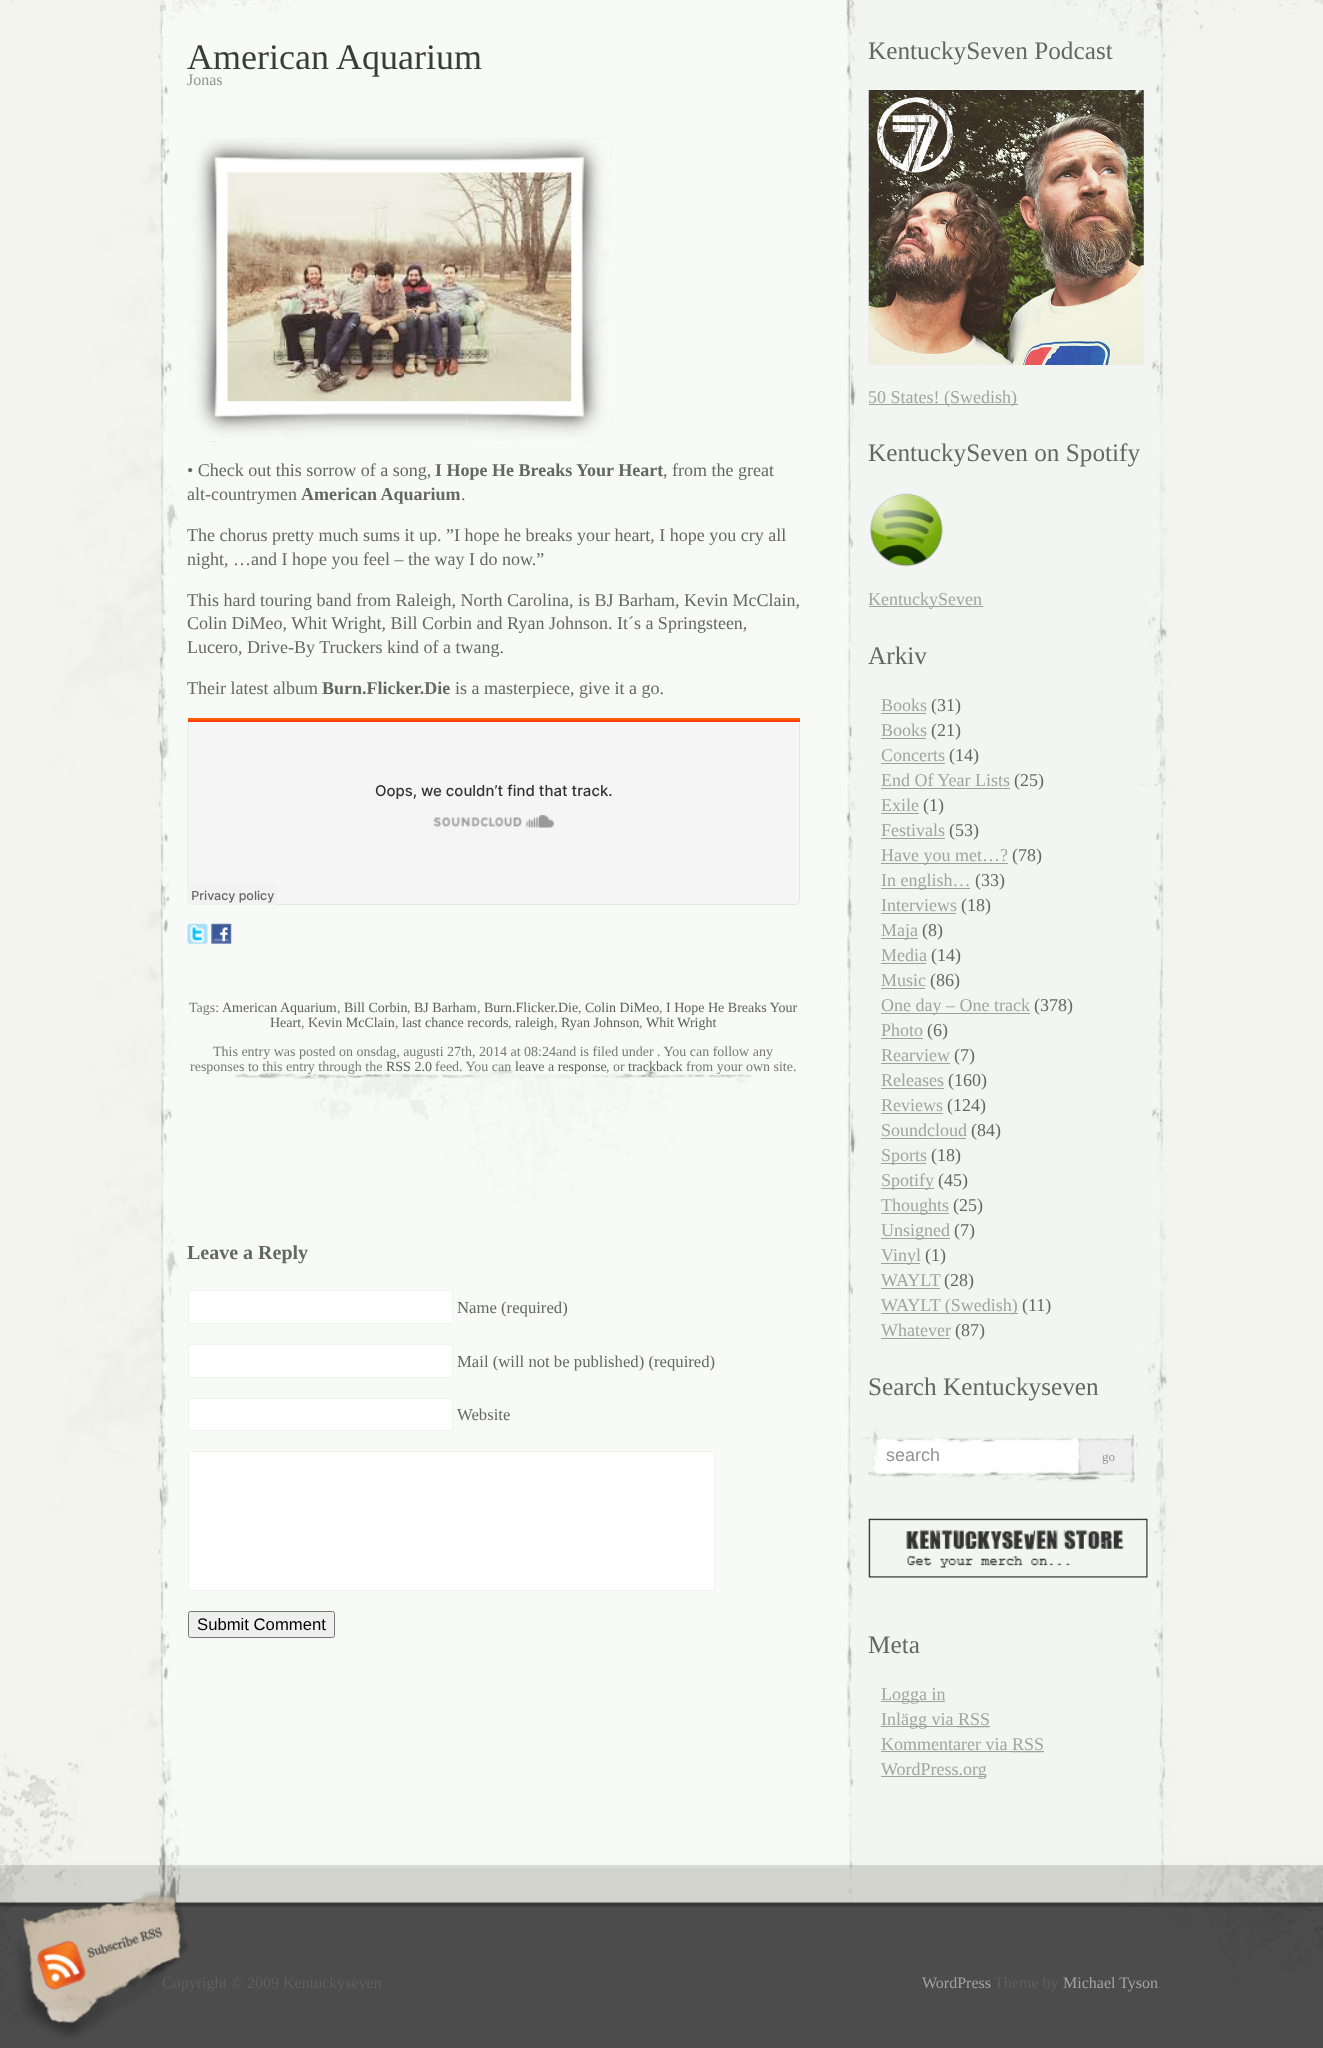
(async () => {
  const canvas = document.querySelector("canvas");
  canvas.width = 1323;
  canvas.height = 2048;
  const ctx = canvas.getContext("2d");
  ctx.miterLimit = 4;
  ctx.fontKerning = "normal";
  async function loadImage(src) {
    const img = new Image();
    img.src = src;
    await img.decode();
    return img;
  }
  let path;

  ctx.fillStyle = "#f3f4ee";
  ctx.fillRect(0, 0, 1323, 2048);
  ctx.drawImage(await loadImage("img/1.png"), 10, 0, 1313, 36);
  ctx.drawImage(await loadImage("img/2.png"), 51, 36, 1222, 1712);
  ctx.drawImage(await loadImage("img/3.png"), 192, 137, 420, 305);
  ctx.drawImage(await loadImage("img/4.png"), 191, 319, 421, 123);
  ctx.drawImage(await loadImage("img/5.png"), 466, 139, 146, 303);
  ctx.drawImage(await loadImage("img/6.png"), 466, 316, 142, 126);
  ctx.drawImage(await loadImage("img/7.png"), 227, 172, 345, 230);
  ctx.drawImage(await loadImage("img/8.png"), 187, 717, 613, 188);
  ctx.drawImage(await loadImage("img/9.png"), 187, 923, 21, 21);
  ctx.drawImage(await loadImage("img/10.png"), 211, 923, 21, 21);
  ctx.drawImage(await loadImage("img/11.png"), 235, 1064, 518, 142);
  ctx.fillStyle = "#ffffff";
  ctx.beginPath();
  ctx.rect(188.5, 1290.5, 264, 33);
  ctx.fill();
  ctx.strokeStyle = "#f2f2f2";
  ctx.stroke();
  ctx.beginPath();
  ctx.rect(188.5, 1344.5, 264, 33);
  ctx.fill();
  ctx.stroke();
  ctx.beginPath();
  ctx.rect(188.5, 1398.5, 264, 32);
  ctx.fill();
  ctx.stroke();
  ctx.beginPath();
  ctx.rect(188.5, 1451.5, 526, 139);
  ctx.fill();
  ctx.stroke();
  ctx.fillStyle = "#efefef";
  ctx.beginPath();
  ctx.roundRect(188.5, 1611.5, 146, 26, 2);
  ctx.fill();
  ctx.strokeStyle = "#767676";
  ctx.stroke();
  ctx.drawImage(await loadImage("img/12.png"), 868, 90, 276, 275);
  ctx.fillStyle = "#9f9f9f";
  ctx.fillRect(869, 404, 149, 1);
  ctx.drawImage(await loadImage("img/13.png"), 870, 493, 73, 74);
  for (const [x, y, w, h, color] of [
    [869, 606, 114, 1, "#9f9f9f"],
    [881, 713, 45, 1, "#9f9f9f"],
    [881, 738, 45, 1, "#9f9f9f"],
    [881, 763, 64, 1, "#9f9f9f"],
    [881, 788, 129, 1, "#9f9f9f"],
    [881, 813, 38, 1, "#9f9f9f"],
    [881, 838, 64, 1, "#9f9f9f"],
    [881, 863, 127, 1, "#9f9f9f"],
    [881, 888, 89, 1, "#9f9f9f"],
    [881, 913, 75, 1, "#9f9f9f"],
    [881, 938, 37, 1, "#9f9f9f"],
    [881, 963, 45, 1, "#9f9f9f"],
    [881, 988, 44, 1, "#9f9f9f"],
    [881, 1013, 149, 1, "#9f9f9f"],
    [881, 1038, 42, 1, "#9f9f9f"],
    [881, 1063, 69, 1, "#9f9f9f"],
    [881, 1088, 63, 1, "#9f9f9f"],
    [881, 1113, 62, 1, "#9f9f9f"],
    [881, 1138, 85, 1, "#9f9f9f"],
    [881, 1163, 45, 1, "#9f9f9f"],
    [881, 1188, 53, 1, "#9f9f9f"],
    [881, 1213, 68, 1, "#9f9f9f"],
    [881, 1238, 69, 1, "#9f9f9f"],
    [881, 1263, 39, 1, "#9f9f9f"],
    [881, 1288, 59, 1, "#9f9f9f"],
    [881, 1313, 137, 1, "#9f9f9f"],
    [881, 1338, 69, 1, "#9f9f9f"],
  ]) {
    ctx.fillStyle = color;
    ctx.fillRect(x, y, w, h);
  }
  ctx.drawImage(await loadImage("img/14.png"), 860, 1426, 278, 57);
  ctx.fillStyle = "#ffffff";
  ctx.fillRect(884, 1444, 190, 2);
  ctx.drawImage(await loadImage("img/15.png"), 868, 1518, 280, 60);
  ctx.fillStyle = "#9f9f9f";
  ctx.fillRect(881, 1701, 64, 1);
  ctx.fillRect(881, 1726, 77, 1);
  ctx.drawImage(await loadImage("img/16.png"), 0, 1747, 1323, 1);
  ctx.drawImage(await loadImage("img/17.png"), 0, 1747, 1323, 279);
  ctx.fillRect(881, 1751, 130, 1);
  path = new Path2D("M1011.5 1752H1043.5");
  ctx.strokeStyle = "#9f9f9f";
  ctx.lineWidth = 1.2;
  ctx.setLineDash([1.25, 1.25]);
  ctx.stroke(path);
  for (const [x, y, w, h, color] of [
    [1011, 1751, 33, 1, "#9f9f9f"],
    [881, 1776, 105, 1, "#9f9f9f"],
    [0, 2026, 1323, 22, "#4c4c4c"],
  ]) {
    ctx.fillStyle = color;
    ctx.fillRect(x, y, w, h);
  }
  ctx.font = "36px Liberation Serif";
  ctx.fillStyle = "#3b3b3b";
  ctx.fillText("American Aquarium", 187, 69);
  ctx.font = "16px Liberation Serif";
  ctx.fillStyle = "#949494";
  ctx.fillText("Jonas", 187, 85);
  ctx.font = "18px Liberation Serif";
  ctx.fillStyle = "#666666";
  ctx.fillText("• Check out this sorrow of a song,", 187, 476);
  ctx.font = "bold 18px Liberation Serif";
  ctx.fillText("I Hope He Breaks Your Heart", 435, 476);
  ctx.font = "18px Liberation Serif";
  ctx.fillText(", from the great", 663, 476);
  ctx.fillText("alt-countrymen", 187, 500);
  ctx.font = "bold 18px Liberation Serif";
  ctx.fillText("American Aquarium", 301, 500);
  ctx.font = "18px Liberation Serif";
  for (const [text, x, y] of [
    [".", 461, 500],
    ["The chorus pretty much sums it up. ”I hope he breaks your heart, I hope you cry all", 187, 541],
    ["night, …and I hope you feel – the way I do now.”", 187, 565],
    ["This hard touring band from Raleigh, North Carolina, is BJ Barham, Kevin McClain,", 187, 606],
    ["Colin DiMeo, Whit Wright, Bill Corbin and Ryan Johnson. It´s a Springsteen,", 187, 629],
    ["Lucero, Drive-By Truckers kind of a twang.", 187, 653],
    ["Their latest album", 187, 694],
  ]) {
    ctx.fillText(text, x, y);
  }
  ctx.font = "bold 18px Liberation Serif";
  ctx.fillText("Burn.Flicker.Die", 322, 694);
  ctx.font = "18px Liberation Serif";
  ctx.fillText("is a masterpiece, give it a go.", 455, 694);
  ctx.font = "14px Liberation Serif";
  ctx.fillStyle = "#797979";
  ctx.fillText("Tags:", 189, 1012);
  ctx.fillStyle = "#5f5f5f";
  ctx.fillText("American Aquarium", 222, 1012);
  ctx.fillStyle = "#797979";
  ctx.fillText(",", 337, 1012);
  ctx.fillStyle = "#5f5f5f";
  ctx.fillText("Bill Corbin", 344, 1012);
  ctx.fillStyle = "#797979";
  ctx.fillText(",", 407, 1012);
  ctx.fillStyle = "#5f5f5f";
  ctx.fillText("BJ Barham", 414, 1012);
  ctx.fillStyle = "#797979";
  ctx.fillText(",", 477, 1012);
  ctx.fillStyle = "#5f5f5f";
  ctx.fillText("Burn.Flicker.Die", 484, 1012);
  ctx.fillStyle = "#797979";
  ctx.fillText(",", 578, 1012);
  ctx.fillStyle = "#5f5f5f";
  ctx.fillText("Colin DiMeo", 585, 1012);
  ctx.fillStyle = "#797979";
  ctx.fillText(",", 659, 1012);
  ctx.fillStyle = "#5f5f5f";
  ctx.fillText("I Hope He Breaks Your", 666, 1012);
  ctx.fillText("Heart", 270, 1027);
  ctx.fillStyle = "#797979";
  ctx.fillText(",", 301, 1027);
  ctx.fillStyle = "#5f5f5f";
  ctx.fillText("Kevin McClain", 308, 1027);
  ctx.fillStyle = "#797979";
  ctx.fillText(",", 395, 1027);
  ctx.fillStyle = "#5f5f5f";
  ctx.fillText("last chance records", 402, 1027);
  ctx.fillStyle = "#797979";
  ctx.fillText(",", 508, 1027);
  ctx.fillStyle = "#5f5f5f";
  ctx.fillText("raleigh", 515, 1027);
  ctx.fillStyle = "#797979";
  ctx.fillText(",", 554, 1027);
  ctx.fillStyle = "#5f5f5f";
  ctx.fillText("Ryan Johnson", 561, 1027);
  ctx.fillStyle = "#797979";
  ctx.fillText(",", 639, 1027);
  ctx.fillStyle = "#5f5f5f";
  ctx.fillText("Whit Wright", 646, 1027);
  ctx.fillStyle = "#797979";
  ctx.fillText("This entry was posted on onsdag, augusti 27th, 2014 at 08:24and is filed under . You can follow any", 213, 1056);
  ctx.fillText("responses to this entry through the", 190, 1071);
  ctx.fillStyle = "#5f5f5f";
  ctx.fillText("RSS 2.0", 386, 1071);
  ctx.fillStyle = "#797979";
  ctx.fillText("feed. You can", 435, 1071);
  ctx.fillStyle = "#5f5f5f";
  ctx.fillText("leave a response", 515, 1071);
  ctx.fillStyle = "#797979";
  ctx.fillText(", or", 606, 1071);
  ctx.fillStyle = "#5f5f5f";
  ctx.fillText("trackback", 628, 1071);
  ctx.fillStyle = "#797979";
  ctx.fillText("from your own site.", 686, 1071);
  ctx.font = "bold 20px Liberation Serif";
  ctx.fillStyle = "#666666";
  ctx.fillText("Leave a Reply", 187, 1259);
  ctx.font = "16.7px Liberation Serif";
  for (const [text, x, y] of [
    ["Name (required)", 457, 1313],
    ["Mail (will not be published) (required)", 457, 1367],
    ["Website", 457, 1420],
  ]) {
    ctx.fillText(text, x, y);
  }
  ctx.font = "16.7px Liberation Sans";
  ctx.fillStyle = "#000000";
  ctx.fillText("Submit Comment", 197, 1630);
  ctx.font = "25.25px Liberation Serif";
  ctx.fillStyle = "#666666";
  ctx.fillText("KentuckySeven Podcast", 868, 59);
  ctx.font = "18px Liberation Serif";
  ctx.fillStyle = "#a3a3a3";
  ctx.fillText("50 States! (Swedish)", 868, 403);
  ctx.font = "25.25px Liberation Serif";
  ctx.fillStyle = "#666666";
  ctx.fillText("KentuckySeven on Spotify", 868, 461);
  ctx.font = "18px Liberation Serif";
  ctx.fillStyle = "#a3a3a3";
  ctx.fillText("KentuckySeven", 868, 605);
  ctx.font = "25.25px Liberation Serif";
  ctx.fillStyle = "#666666";
  ctx.fillText("Arkiv", 868, 664);
  ctx.font = "18px Liberation Serif";
  ctx.fillStyle = "#a3a3a3";
  ctx.fillText("Books", 881, 711);
  ctx.fillStyle = "#666666";
  ctx.fillText("(31)", 931, 711);
  ctx.fillStyle = "#a3a3a3";
  ctx.fillText("Books", 881, 736);
  ctx.fillStyle = "#666666";
  ctx.fillText("(21)", 931, 736);
  ctx.fillStyle = "#a3a3a3";
  ctx.fillText("Concerts", 881, 761);
  ctx.fillStyle = "#666666";
  ctx.fillText("(14)", 949, 761);
  ctx.fillStyle = "#a3a3a3";
  ctx.fillText("End Of Year Lists", 881, 786);
  ctx.fillStyle = "#666666";
  ctx.fillText("(25)", 1014, 786);
  ctx.fillStyle = "#a3a3a3";
  ctx.fillText("Exile", 881, 811);
  ctx.fillStyle = "#666666";
  ctx.fillText("(1)", 923, 811);
  ctx.fillStyle = "#a3a3a3";
  ctx.fillText("Festivals", 881, 836);
  ctx.fillStyle = "#666666";
  ctx.fillText("(53)", 949, 836);
  ctx.fillStyle = "#a3a3a3";
  ctx.fillText("Have you met…?", 881, 861);
  ctx.fillStyle = "#666666";
  ctx.fillText("(78)", 1012, 861);
  ctx.fillStyle = "#a3a3a3";
  ctx.fillText("In english…", 881, 886);
  ctx.fillStyle = "#666666";
  ctx.fillText("(33)", 975, 886);
  ctx.fillStyle = "#a3a3a3";
  ctx.fillText("Interviews", 881, 911);
  ctx.fillStyle = "#666666";
  ctx.fillText("(18)", 961, 911);
  ctx.fillStyle = "#a3a3a3";
  ctx.fillText("Maja", 881, 936);
  ctx.fillStyle = "#666666";
  ctx.fillText("(8)", 922, 936);
  ctx.fillStyle = "#a3a3a3";
  ctx.fillText("Media", 881, 961);
  ctx.fillStyle = "#666666";
  ctx.fillText("(14)", 931, 961);
  ctx.fillStyle = "#a3a3a3";
  ctx.fillText("Music", 881, 986);
  ctx.fillStyle = "#666666";
  ctx.fillText("(86)", 930, 986);
  ctx.fillStyle = "#a3a3a3";
  ctx.fillText("One day – One track", 881, 1011);
  ctx.fillStyle = "#666666";
  ctx.fillText("(378)", 1034, 1011);
  ctx.fillStyle = "#a3a3a3";
  ctx.fillText("Photo", 881, 1036);
  ctx.fillStyle = "#666666";
  ctx.fillText("(6)", 927, 1036);
  ctx.fillStyle = "#a3a3a3";
  ctx.fillText("Rearview", 881, 1061);
  ctx.fillStyle = "#666666";
  ctx.fillText("(7)", 954, 1061);
  ctx.fillStyle = "#a3a3a3";
  ctx.fillText("Releases", 881, 1086);
  ctx.fillStyle = "#666666";
  ctx.fillText("(160)", 948, 1086);
  ctx.fillStyle = "#a3a3a3";
  ctx.fillText("Reviews", 881, 1111);
  ctx.fillStyle = "#666666";
  ctx.fillText("(124)", 947, 1111);
  ctx.fillStyle = "#a3a3a3";
  ctx.fillText("Soundcloud", 881, 1136);
  ctx.fillStyle = "#666666";
  ctx.fillText("(84)", 971, 1136);
  ctx.fillStyle = "#a3a3a3";
  ctx.fillText("Sports", 881, 1161);
  ctx.fillStyle = "#666666";
  ctx.fillText("(18)", 931, 1161);
  ctx.fillStyle = "#a3a3a3";
  ctx.fillText("Spotify", 881, 1186);
  ctx.fillStyle = "#666666";
  ctx.fillText("(45)", 938, 1186);
  ctx.fillStyle = "#a3a3a3";
  ctx.fillText("Thoughts", 881, 1211);
  ctx.fillStyle = "#666666";
  ctx.fillText("(25)", 953, 1211);
  ctx.fillStyle = "#a3a3a3";
  ctx.fillText("Unsigned", 881, 1236);
  ctx.fillStyle = "#666666";
  ctx.fillText("(7)", 954, 1236);
  ctx.fillStyle = "#a3a3a3";
  ctx.fillText("Vinyl", 881, 1261);
  ctx.fillStyle = "#666666";
  ctx.fillText("(1)", 925, 1261);
  ctx.fillStyle = "#a3a3a3";
  ctx.fillText("WAYLT", 881, 1286);
  ctx.fillStyle = "#666666";
  ctx.fillText("(28)", 944, 1286);
  ctx.fillStyle = "#a3a3a3";
  ctx.fillText("WAYLT (Swedish)", 881, 1311);
  ctx.fillStyle = "#666666";
  ctx.fillText("(11)", 1022, 1311);
  ctx.fillStyle = "#a3a3a3";
  ctx.fillText("Whatever", 881, 1336);
  ctx.fillStyle = "#666666";
  ctx.fillText("(87)", 955, 1336);
  ctx.font = "25.25px Liberation Serif";
  ctx.fillText("Search Kentuckyseven", 868, 1395);
  ctx.font = "18px Liberation Sans";
  ctx.fillStyle = "#949494";
  ctx.fillText("search", 886, 1461);
  ctx.font = "13px Liberation Serif";
  ctx.fillText("go", 1102, 1461);
  ctx.font = "25.25px Liberation Serif";
  ctx.fillStyle = "#666666";
  ctx.fillText("Meta", 868, 1653);
  ctx.font = "18px Liberation Serif";
  ctx.fillStyle = "#a3a3a3";
  ctx.fillText("Logga in", 881, 1700);
  ctx.fillText("Inlägg via RSS", 881, 1725);
  path = new Path2D("M957.5 1727H989.5");
  ctx.stroke(path);
  ctx.fillStyle = "#9f9f9f";
  ctx.fillRect(958, 1726, 32, 1);
  ctx.fillStyle = "#a3a3a3";
  ctx.fillText("Kommentarer via RSS", 881, 1750);
  ctx.fillText("WordPress.org", 881, 1775);
  ctx.font = "16px Liberation Serif";
  ctx.fillStyle = "#5f5f5f";
  ctx.fillText("Copyright © 2009 Kentuckyseven", 162, 1988);
  ctx.drawImage(await loadImage("img/18.png"), 17, 1891, 171, 148);
  ctx.fillStyle = "#a3a3a3";
  ctx.fillText("WordPress", 922, 1988);
  ctx.fillStyle = "#5f5f5f";
  ctx.fillText("Theme by", 994, 1988);
  ctx.fillStyle = "#a3a3a3";
  ctx.fillText("Michael Tyson", 1063, 1988);
  ctx.fillStyle = "#5f5f5f";
  ctx.fillText(".", 1158, 1988);
})();
